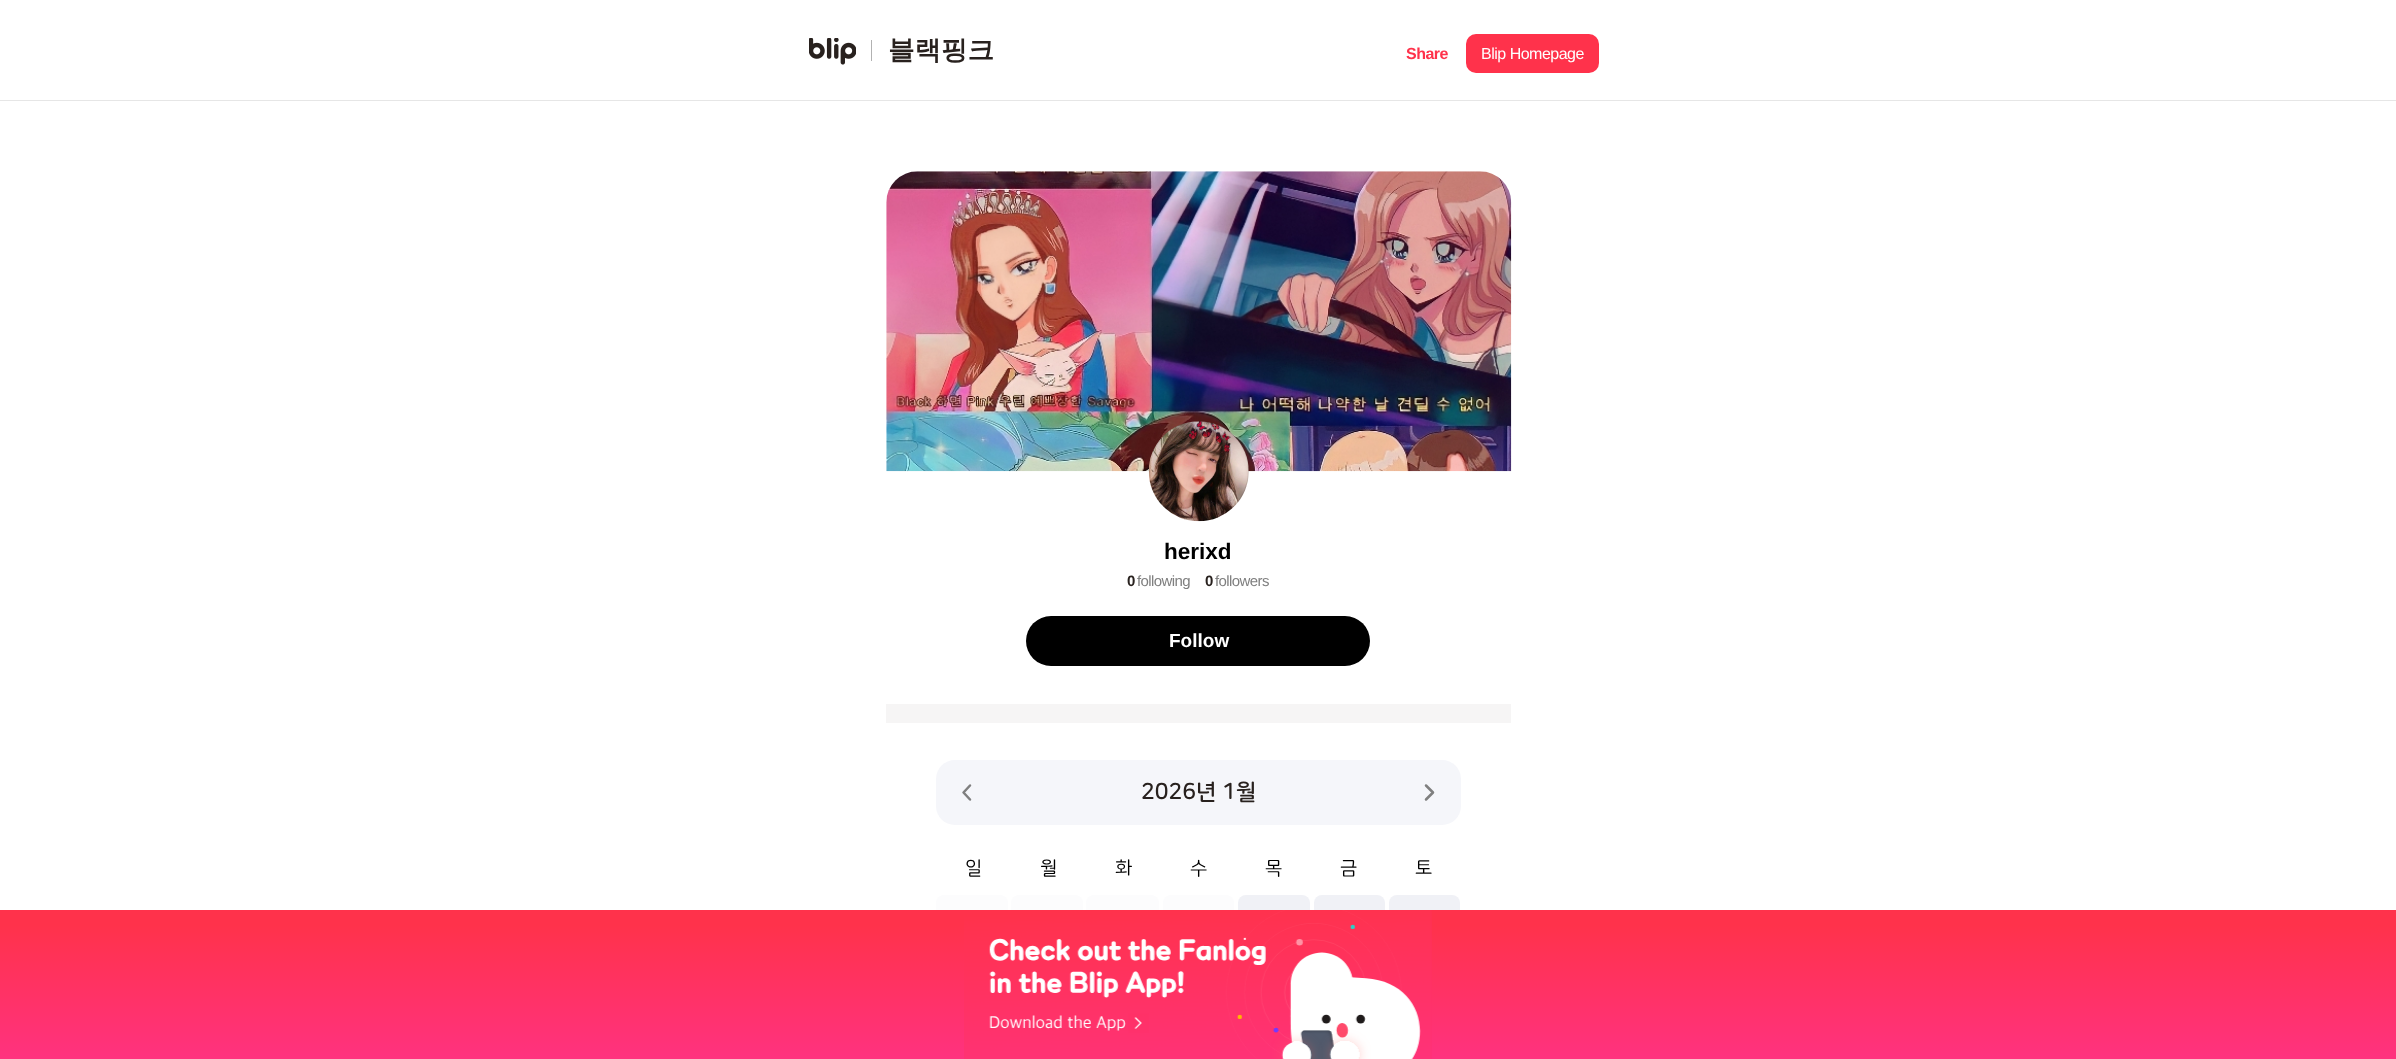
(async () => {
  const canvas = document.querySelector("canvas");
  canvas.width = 2396;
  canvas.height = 1059;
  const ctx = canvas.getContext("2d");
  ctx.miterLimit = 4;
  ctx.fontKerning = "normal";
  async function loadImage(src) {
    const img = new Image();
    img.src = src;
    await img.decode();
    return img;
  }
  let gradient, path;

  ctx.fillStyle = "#ffffff";
  ctx.fillRect(0, 0, 2396, 1059);
  ctx.fillStyle = "#e6e6e6";
  ctx.fillRect(0, 100, 2396, 1);
  ctx.drawImage(await loadImage("img/1.png"), 809, 38, 47, 27);
  ctx.fillStyle = "#b2b2b2";
  ctx.fillRect(871, 40, 1, 21);
  ctx.fillStyle = "#ff324b";
  ctx.beginPath();
  ctx.roundRect(1466, 34, 133, 39, 10);
  ctx.fill();
  ctx.drawImage(await loadImage("img/2.png"), 886, 171, 626, 301);
  ctx.drawImage(await loadImage("img/3.png"), 1148, 421, 101, 101);
  ctx.beginPath();
  ctx.arc(1199, 471, 49.5, 0, Math.PI * 2);
  ctx.strokeStyle = "rgba(0, 0, 0, 0.1)";
  ctx.stroke();
  ctx.fillStyle = "#000000";
  ctx.beginPath();
  ctx.roundRect(1026, 616, 344, 50, 25);
  ctx.fill();
  ctx.fillStyle = "#f6f5f5";
  ctx.fillRect(886, 704, 625, 19);
  ctx.fillStyle = "#f5f6fa";
  ctx.beginPath();
  ctx.roundRect(936, 760, 525, 65, 19);
  ctx.fill();
  path = new Path2D("M970 785.5L963.5 792.5L970 799.5");
  ctx.strokeStyle = "#7f7f7f";
  ctx.lineWidth = 2.5;
  ctx.lineCap = "round";
  ctx.lineJoin = "round";
  ctx.stroke(path);
  path = new Path2D("M1426 785.5L1433 792.5L1426 799.5");
  ctx.stroke(path);
  ctx.fillStyle = "#fcfcfd";
  ctx.beginPath();
  ctx.roundRect(936, 895, 72, 119, 8);
  ctx.fill();
  ctx.beginPath();
  ctx.roundRect(1011, 895, 72, 119, 8);
  ctx.fill();
  ctx.beginPath();
  ctx.roundRect(1086, 895, 73, 119, 8);
  ctx.fill();
  ctx.beginPath();
  ctx.roundRect(1163, 895, 71, 119, 8);
  ctx.fill();
  ctx.fillStyle = "#f0f1f6";
  ctx.beginPath();
  ctx.roundRect(1238, 895, 72, 119, 8);
  ctx.fill();
  ctx.beginPath();
  ctx.roundRect(1314, 895, 71, 119, 8);
  ctx.fill();
  ctx.beginPath();
  ctx.roundRect(1389, 895, 71, 119, 8);
  ctx.fill();
  gradient = ctx.createLinearGradient(1198, 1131, 1198, 910);
  gradient.addColorStop(0, "#ff329b");
  gradient.addColorStop(0.93, "#ff324b");
  ctx.fillStyle = gradient;
  ctx.fillRect(0, 910, 2396, 149);
  ctx.drawImage(await loadImage("img/4.png"), 964, 910, 468, 149);
  ctx.font = "bold 26.5px WenQuanYi Zen Hei";
  ctx.fillStyle = "#28211e";
  ctx.fillText("블랙핑크", 888, 59);
  ctx.letterSpacing = "-0.5px";
  ctx.font = "bold 16px Liberation Sans";
  ctx.fillStyle = "#ff324b";
  ctx.fillText("Share", 1406, 59);
  ctx.font = "16px Liberation Sans";
  ctx.fillStyle = "#ffffff";
  ctx.fillText("Blip Homepage", 1481, 59);
  ctx.letterSpacing = "0px";
  ctx.font = "bold 22.5px Liberation Sans";
  ctx.fillStyle = "#000000";
  ctx.fillText("herixd", 1164, 559);
  ctx.letterSpacing = "-0.6px";
  ctx.font = "bold 15px Liberation Sans";
  ctx.fillStyle = "#28211e";
  ctx.fillText("0", 1127, 586);
  ctx.font = "15px Liberation Sans";
  ctx.fillStyle = "#7f7f7f";
  ctx.fillText("following", 1137, 586);
  ctx.font = "bold 15px Liberation Sans";
  ctx.fillStyle = "#28211e";
  ctx.fillText("0", 1205, 586);
  ctx.font = "15px Liberation Sans";
  ctx.fillStyle = "#7f7f7f";
  ctx.fillText("followers", 1215, 586);
  ctx.letterSpacing = "0px";
  ctx.font = "bold 19px Liberation Sans";
  ctx.fillStyle = "#ffffff";
  ctx.fillText("Follow", 1169, 647);
  ctx.font = "bold 22.5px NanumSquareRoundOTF";
  ctx.fillStyle = "#28211e";
  ctx.fillText("2026년 1월", 1141, 799);
  ctx.font = "19px NanumSquareRoundOTF";
  ctx.fillStyle = "#000000";
  for (const [text, x, y] of [
    ["일", 965, 874],
    ["월", 1040, 874],
    ["화", 1115, 874],
    ["수", 1190, 874],
    ["목", 1265, 874],
    ["금", 1340, 874],
    ["토", 1415, 874],
  ]) {
    ctx.fillText(text, x, y);
  }
})();
